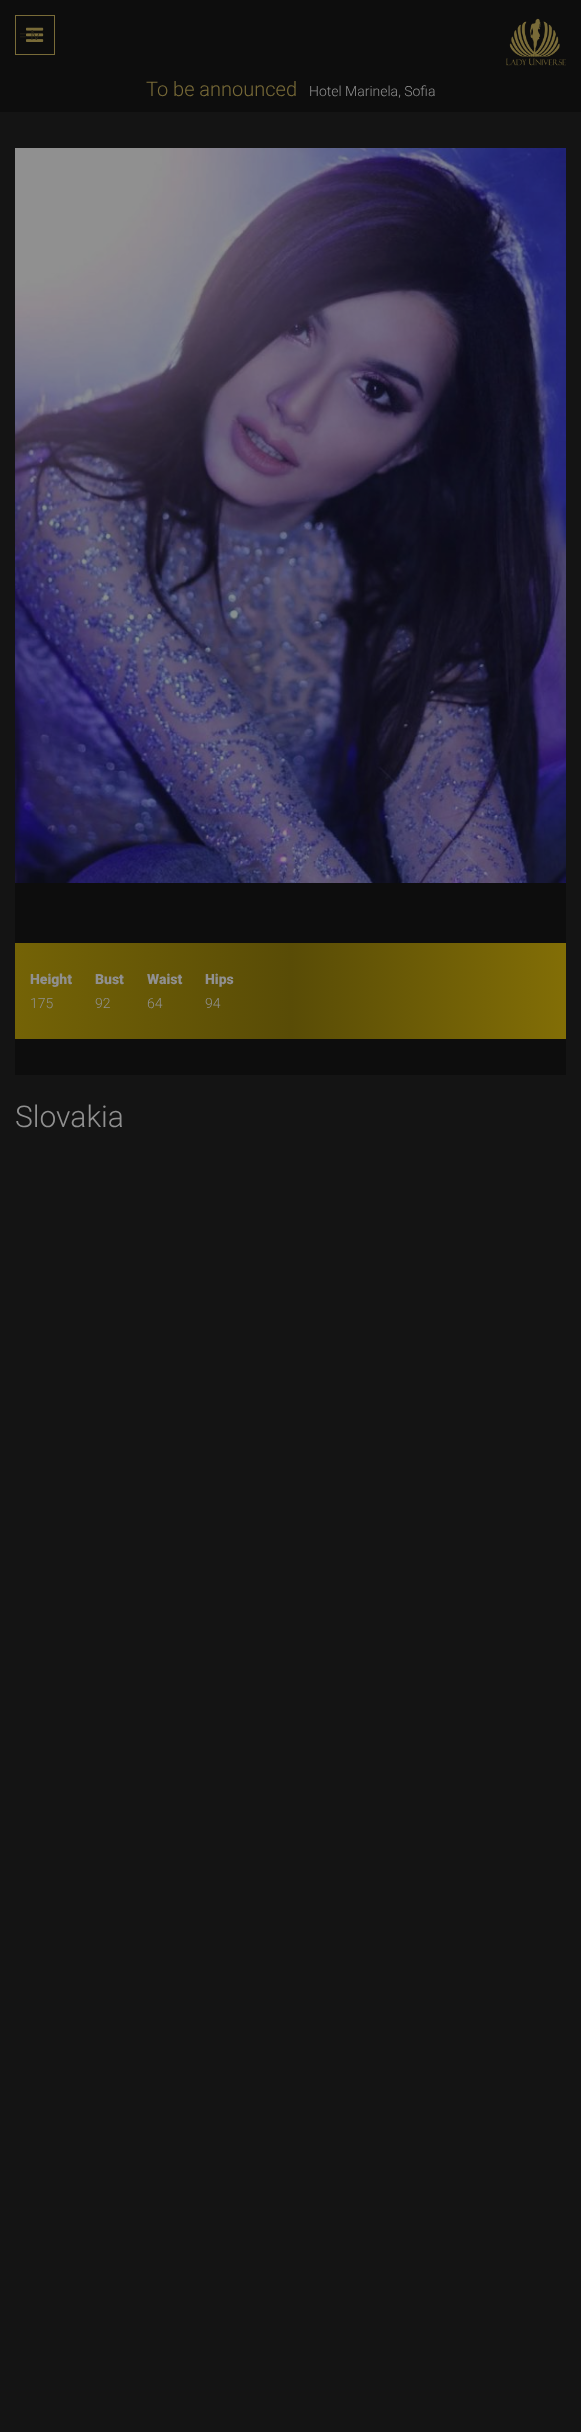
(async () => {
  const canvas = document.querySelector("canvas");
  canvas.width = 581;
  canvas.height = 2432;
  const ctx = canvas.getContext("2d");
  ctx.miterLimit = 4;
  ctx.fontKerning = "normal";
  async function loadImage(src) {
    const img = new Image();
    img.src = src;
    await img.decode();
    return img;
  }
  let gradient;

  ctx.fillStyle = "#141414";
  ctx.fillRect(0, 0, 581, 2432);
  ctx.fillStyle = "#0d0d0d";
  ctx.fillRect(0, 0, 581, 112);
  ctx.strokeStyle = "#796b38";
  ctx.strokeRect(15.5, 15.5, 39, 39);
  ctx.drawImage(await loadImage("img/1.png"), 26, 27, 18, 15);
  ctx.drawImage(await loadImage("img/2.png"), 506, 18, 60, 48);
  ctx.drawImage(await loadImage("img/3.png"), 15, 148, 551, 735);
  ctx.fillRect(15, 883, 551, 192);
  gradient = ctx.createLinearGradient(15, 991, 566, 991);
  gradient.addColorStop(0, "#746306");
  gradient.addColorStop(0.5, "#594c06");
  gradient.addColorStop(1, "#826e06");
  ctx.fillStyle = gradient;
  ctx.fillRect(15, 943, 551, 96);
  ctx.save();
  ctx.beginPath();
  ctx.rect(19, 26, 20, 18);
  ctx.clip();
  ctx.font = "300 14px Roboto";
  ctx.fillStyle = "#2d291a";
  ctx.fillText("= M", 19, 40);
  ctx.restore();
  ctx.font = "300 20px Roboto";
  ctx.fillStyle = "#796b38";
  ctx.fillText("To be announced", 146, 96);
  ctx.font = "300 14px Roboto";
  ctx.fillStyle = "#909090";
  ctx.fillText("Hotel Marinela, Sofia", 309, 96);
  ctx.font = "900 14px Roboto";
  ctx.fillText("Height", 30, 984);
  ctx.font = "300 14px Roboto";
  ctx.fillText("175", 30, 1008);
  ctx.font = "900 14px Roboto";
  ctx.fillText("Bust", 95, 984);
  ctx.font = "300 14px Roboto";
  ctx.fillText("92", 95, 1008);
  ctx.font = "900 14px Roboto";
  ctx.fillText("Waist", 147, 984);
  ctx.font = "300 14px Roboto";
  ctx.fillText("64", 147, 1008);
  ctx.font = "900 14px Roboto";
  ctx.fillText("Hips", 205, 984);
  ctx.font = "300 14px Roboto";
  ctx.fillText("94", 205, 1008);
  ctx.font = "300 30px Roboto";
  ctx.fillText("Slovakia", 15, 1127);
})();
